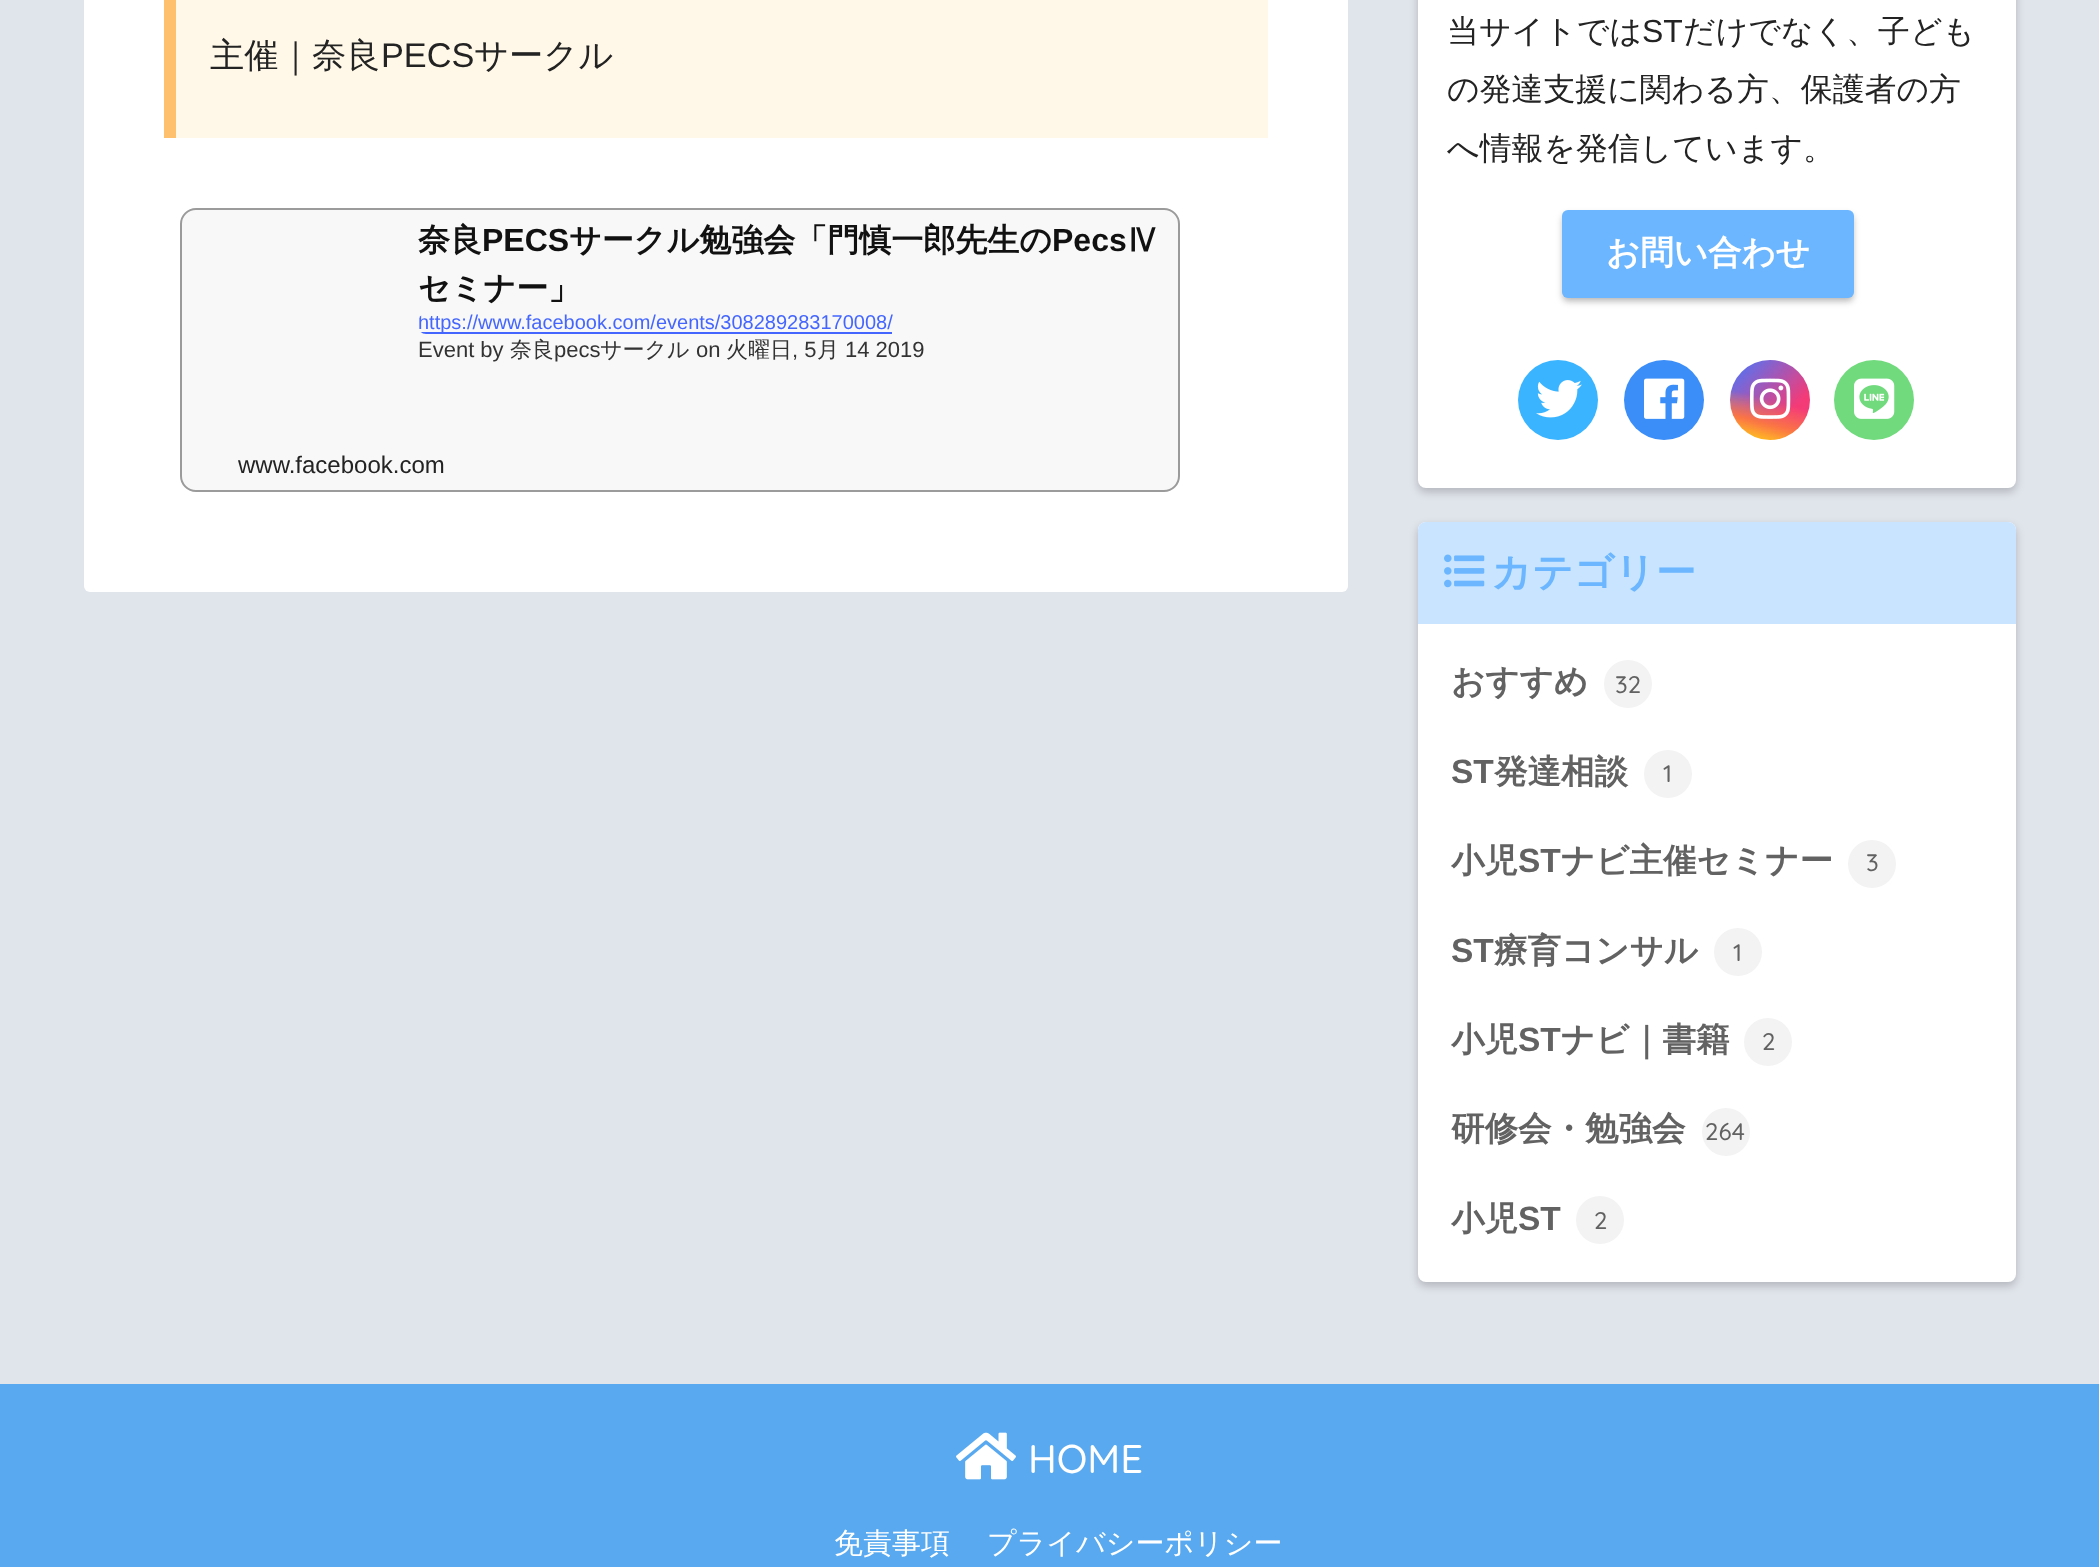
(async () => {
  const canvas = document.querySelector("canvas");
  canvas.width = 2099;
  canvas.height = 1567;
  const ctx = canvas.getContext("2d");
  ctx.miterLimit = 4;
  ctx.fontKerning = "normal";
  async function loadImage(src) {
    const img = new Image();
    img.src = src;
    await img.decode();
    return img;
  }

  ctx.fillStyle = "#e0e4eb";
  ctx.fillRect(0, 0, 2099, 1567);
  ctx.fillStyle = "#ffffff";
  ctx.beginPath();
  ctx.roundRect(84, -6, 1264, 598, 6);
  ctx.fill();
  ctx.fillStyle = "#fff8e8";
  ctx.fillRect(176, 0, 1092, 138);
  ctx.fillStyle = "#ffc06e";
  ctx.fillRect(164, 0, 12, 138);
  ctx.fillStyle = "#f8f8f8";
  ctx.beginPath();
  ctx.roundRect(181, 209, 998, 282, 15);
  ctx.fill();
  ctx.strokeStyle = "#9b9b9b";
  ctx.lineWidth = 2;
  ctx.stroke();
  ctx.save();
  ctx.beginPath();
  ctx.roundRect(418, 314, 744, 20, 8);
  ctx.clip();
  ctx.fillStyle = "#4466ff";
  ctx.fillRect(418, 332, 474, 2);
  ctx.restore();
  ctx.fillStyle = "rgba(0, 0, 0, 0.2)";
  ctx.filter = "blur(4px)";
  ctx.beginPath();
  ctx.roundRect(1418, -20, 598, 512, 8);
  ctx.fill();
  ctx.filter = "none";
  ctx.fillStyle = "#ffffff";
  ctx.beginPath();
  ctx.roundRect(1418, -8, 598, 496, 8);
  ctx.fill();
  ctx.fillStyle = "rgba(0, 0, 0, 0.15)";
  ctx.filter = "blur(3px)";
  ctx.beginPath();
  ctx.roundRect(1566, 218, 284, 80, 2);
  ctx.fill();
  ctx.filter = "none";
  ctx.fillStyle = "rgba(0, 0, 0, 0.2)";
  ctx.filter = "blur(3px)";
  ctx.beginPath();
  ctx.roundRect(1562, 214, 292, 88, 6);
  ctx.fill();
  ctx.filter = "none";
  ctx.fillStyle = "#6bb6ff";
  ctx.beginPath();
  ctx.roundRect(1562, 210, 292, 88, 6);
  ctx.fill();
  ctx.fillStyle = "#3ab4ff";
  ctx.beginPath();
  ctx.arc(1558, 400, 40, 0, Math.PI * 2);
  ctx.fill();
  ctx.drawImage(await loadImage("img/1.png"), 1536, 380, 46, 38);
  ctx.fillStyle = "#3b8df7";
  ctx.beginPath();
  ctx.arc(1664, 400, 40, 0, Math.PI * 2);
  ctx.fill();
  ctx.drawImage(await loadImage("img/2.png"), 1644, 378, 41, 41);
  ctx.drawImage(await loadImage("img/3.png"), 1730, 360, 80, 80);
  ctx.drawImage(await loadImage("img/4.png"), 1750, 378, 41, 41);
  ctx.fillStyle = "#70da7d";
  ctx.beginPath();
  ctx.arc(1874, 400, 40, 0, Math.PI * 2);
  ctx.fill();
  ctx.drawImage(await loadImage("img/5.png"), 1854, 378, 41, 41);
  ctx.fillStyle = "rgba(0, 0, 0, 0.2)";
  ctx.filter = "blur(4px)";
  ctx.beginPath();
  ctx.roundRect(1418, 526, 598, 760, 8);
  ctx.fill();
  ctx.filter = "none";
  ctx.fillStyle = "#ffffff";
  ctx.beginPath();
  ctx.roundRect(1418, 522, 598, 760, 8);
  ctx.fill();
  ctx.fillStyle = "#c8e4ff";
  ctx.beginPath();
  ctx.roundRect(1418, 522, 598, 102, [8, 8, 0, 0]);
  ctx.fill();
  ctx.drawImage(await loadImage("img/6.png"), 1444, 554, 41, 34);
  ctx.fillStyle = "#f3f3f3";
  ctx.beginPath();
  ctx.arc(1628, 684, 24, 0, Math.PI * 2);
  ctx.fill();
  ctx.beginPath();
  ctx.arc(1668, 774, 24, 0, Math.PI * 2);
  ctx.fill();
  ctx.beginPath();
  ctx.arc(1872, 864, 24, 0, Math.PI * 2);
  ctx.fill();
  ctx.beginPath();
  ctx.arc(1738, 952, 24, 0, Math.PI * 2);
  ctx.fill();
  ctx.beginPath();
  ctx.arc(1768, 1042, 24, 0, Math.PI * 2);
  ctx.fill();
  ctx.beginPath();
  ctx.arc(1726, 1132, 24, 0, Math.PI * 2);
  ctx.fill();
  ctx.beginPath();
  ctx.arc(1600, 1220, 24, 0, Math.PI * 2);
  ctx.fill();
  ctx.fillStyle = "#58a9ef";
  ctx.fillRect(0, 1384, 2099, 183);
  ctx.drawImage(await loadImage("img/7.png"), 956, 1432, 60, 48);
  ctx.font = "500 34.25px WenQuanYi Zen Hei";
  ctx.fillStyle = "#232323";
  ctx.fillText("主催｜奈良", 210, 67);
  ctx.font = "34.25px Liberation Sans";
  ctx.fillText("PECS", 381, 67);
  ctx.font = "500 34.25px WenQuanYi Zen Hei";
  ctx.fillText("サークル", 474, 67);
  ctx.font = "bold 32px WenQuanYi Zen Hei";
  ctx.fillStyle = "#111111";
  ctx.fillText("奈良", 418, 251);
  ctx.font = "bold 32px Liberation Sans";
  ctx.fillText("PECS", 482, 251);
  ctx.font = "bold 32px WenQuanYi Zen Hei";
  ctx.fillText("サークル勉強会「門慎一郎先生の", 569, 251);
  ctx.font = "bold 32px Liberation Sans";
  ctx.fillText("Pecs", 1052, 251);
  ctx.font = "bold 32px WenQuanYi Zen Hei";
  ctx.fillText("Ⅳ", 1127, 251);
  ctx.fillText("セミナー」", 418, 299);
  ctx.save();
  ctx.beginPath();
  ctx.roundRect(418, 314, 744, 20, 8);
  ctx.clip();
  ctx.font = "20px Liberation Sans";
  ctx.fillStyle = "#4466ff";
  ctx.fillText("https://www.facebook.com/events/308289283170008/", 418, 329);
  ctx.restore();
  ctx.font = "22px Liberation Sans";
  ctx.fillStyle = "#333333";
  ctx.fillText("Event by", 418, 357);
  ctx.font = "500 22px WenQuanYi Zen Hei";
  ctx.fillText("奈良", 510, 357);
  ctx.font = "22px Liberation Sans";
  ctx.fillText("pecs", 554, 357);
  ctx.font = "500 22px WenQuanYi Zen Hei";
  ctx.fillText("サークル", 600, 357);
  ctx.font = "22px Liberation Sans";
  ctx.fillText("on", 696, 357);
  ctx.font = "500 22px WenQuanYi Zen Hei";
  ctx.fillText("火曜日", 726, 357);
  ctx.font = "22px Liberation Sans";
  ctx.fillText(", 5", 792, 357);
  ctx.font = "500 22px WenQuanYi Zen Hei";
  ctx.fillText("月", 817, 357);
  ctx.font = "22px Liberation Sans";
  ctx.fillText("14 2019", 845, 357);
  ctx.font = "24px Liberation Sans";
  ctx.fillStyle = "#232323";
  ctx.fillText("www.facebook.com", 238, 473);
  ctx.font = "500 31.9px WenQuanYi Zen Hei";
  ctx.fillText("当サイトでは", 1447, 42);
  ctx.font = "31.9px Liberation Sans";
  ctx.fillText("ST", 1642, 42);
  ctx.font = "500 31.9px WenQuanYi Zen Hei";
  for (const [text, x, y] of [
    ["だけでなく、子ども", 1683, 42],
    ["の発達支援に関わる方、保護者の方", 1447, 100],
    ["へ情報を発信しています。", 1447, 159],
  ]) {
    ctx.fillText(text, x, y);
  }
  ctx.font = "bold 33.5px WenQuanYi Zen Hei";
  ctx.fillStyle = "#ffffff";
  ctx.fillText("お問い合わせ", 1606, 264);
  ctx.font = "bold 40.25px WenQuanYi Zen Hei";
  ctx.fillStyle = "#6bb6ff";
  ctx.fillText("カテゴリー", 1491, 586);
  ctx.font = "bold 33.5px WenQuanYi Zen Hei";
  ctx.fillStyle = "#626262";
  ctx.fillText("おすすめ", 1451, 693);
  ctx.font = "500 24px Quicksand";
  ctx.fillText("32", 1615, 693);
  ctx.font = "bold 33.5px Liberation Sans";
  ctx.fillText("ST", 1451, 783);
  ctx.font = "bold 33.5px WenQuanYi Zen Hei";
  ctx.fillText("発達相談", 1494, 783);
  ctx.font = "500 24px Quicksand";
  ctx.fillText("1", 1663, 782);
  ctx.font = "bold 33.5px WenQuanYi Zen Hei";
  ctx.fillText("小児", 1451, 872);
  ctx.font = "bold 33.5px Liberation Sans";
  ctx.fillText("ST", 1518, 872);
  ctx.font = "bold 33.5px WenQuanYi Zen Hei";
  ctx.fillText("ナビ主催セミナー", 1561, 872);
  ctx.font = "500 24px Quicksand";
  ctx.fillText("3", 1866, 871);
  ctx.font = "bold 33.5px Liberation Sans";
  ctx.fillText("ST", 1451, 962);
  ctx.font = "bold 33.5px WenQuanYi Zen Hei";
  ctx.fillText("療育コンサル", 1494, 962);
  ctx.font = "500 24px Quicksand";
  ctx.fillText("1", 1733, 961);
  ctx.font = "bold 33.5px WenQuanYi Zen Hei";
  ctx.fillText("小児", 1451, 1051);
  ctx.font = "bold 33.5px Liberation Sans";
  ctx.fillText("ST", 1518, 1051);
  ctx.font = "bold 33.5px WenQuanYi Zen Hei";
  ctx.fillText("ナビ｜書籍", 1561, 1051);
  ctx.font = "500 24px Quicksand";
  ctx.fillText("2", 1762, 1050);
  ctx.font = "bold 33.5px WenQuanYi Zen Hei";
  ctx.fillText("研修会・勉強会", 1451, 1140);
  ctx.font = "500 24px Quicksand";
  ctx.fillText("264", 1705, 1140);
  ctx.font = "bold 33.5px WenQuanYi Zen Hei";
  ctx.fillText("小児", 1451, 1230);
  ctx.font = "bold 33.5px Liberation Sans";
  ctx.fillText("ST", 1518, 1230);
  ctx.font = "500 24px Quicksand";
  ctx.fillText("2", 1594, 1229);
  ctx.font = "500 40px Quicksand";
  ctx.fillStyle = "#ffffff";
  ctx.fillText("HOME", 1028, 1473);
  ctx.font = "500 29px WenQuanYi Zen Hei";
  ctx.fillText("免責事項", 834, 1553);
  ctx.fillText("プライバシーポリシー", 987, 1553);
})();
